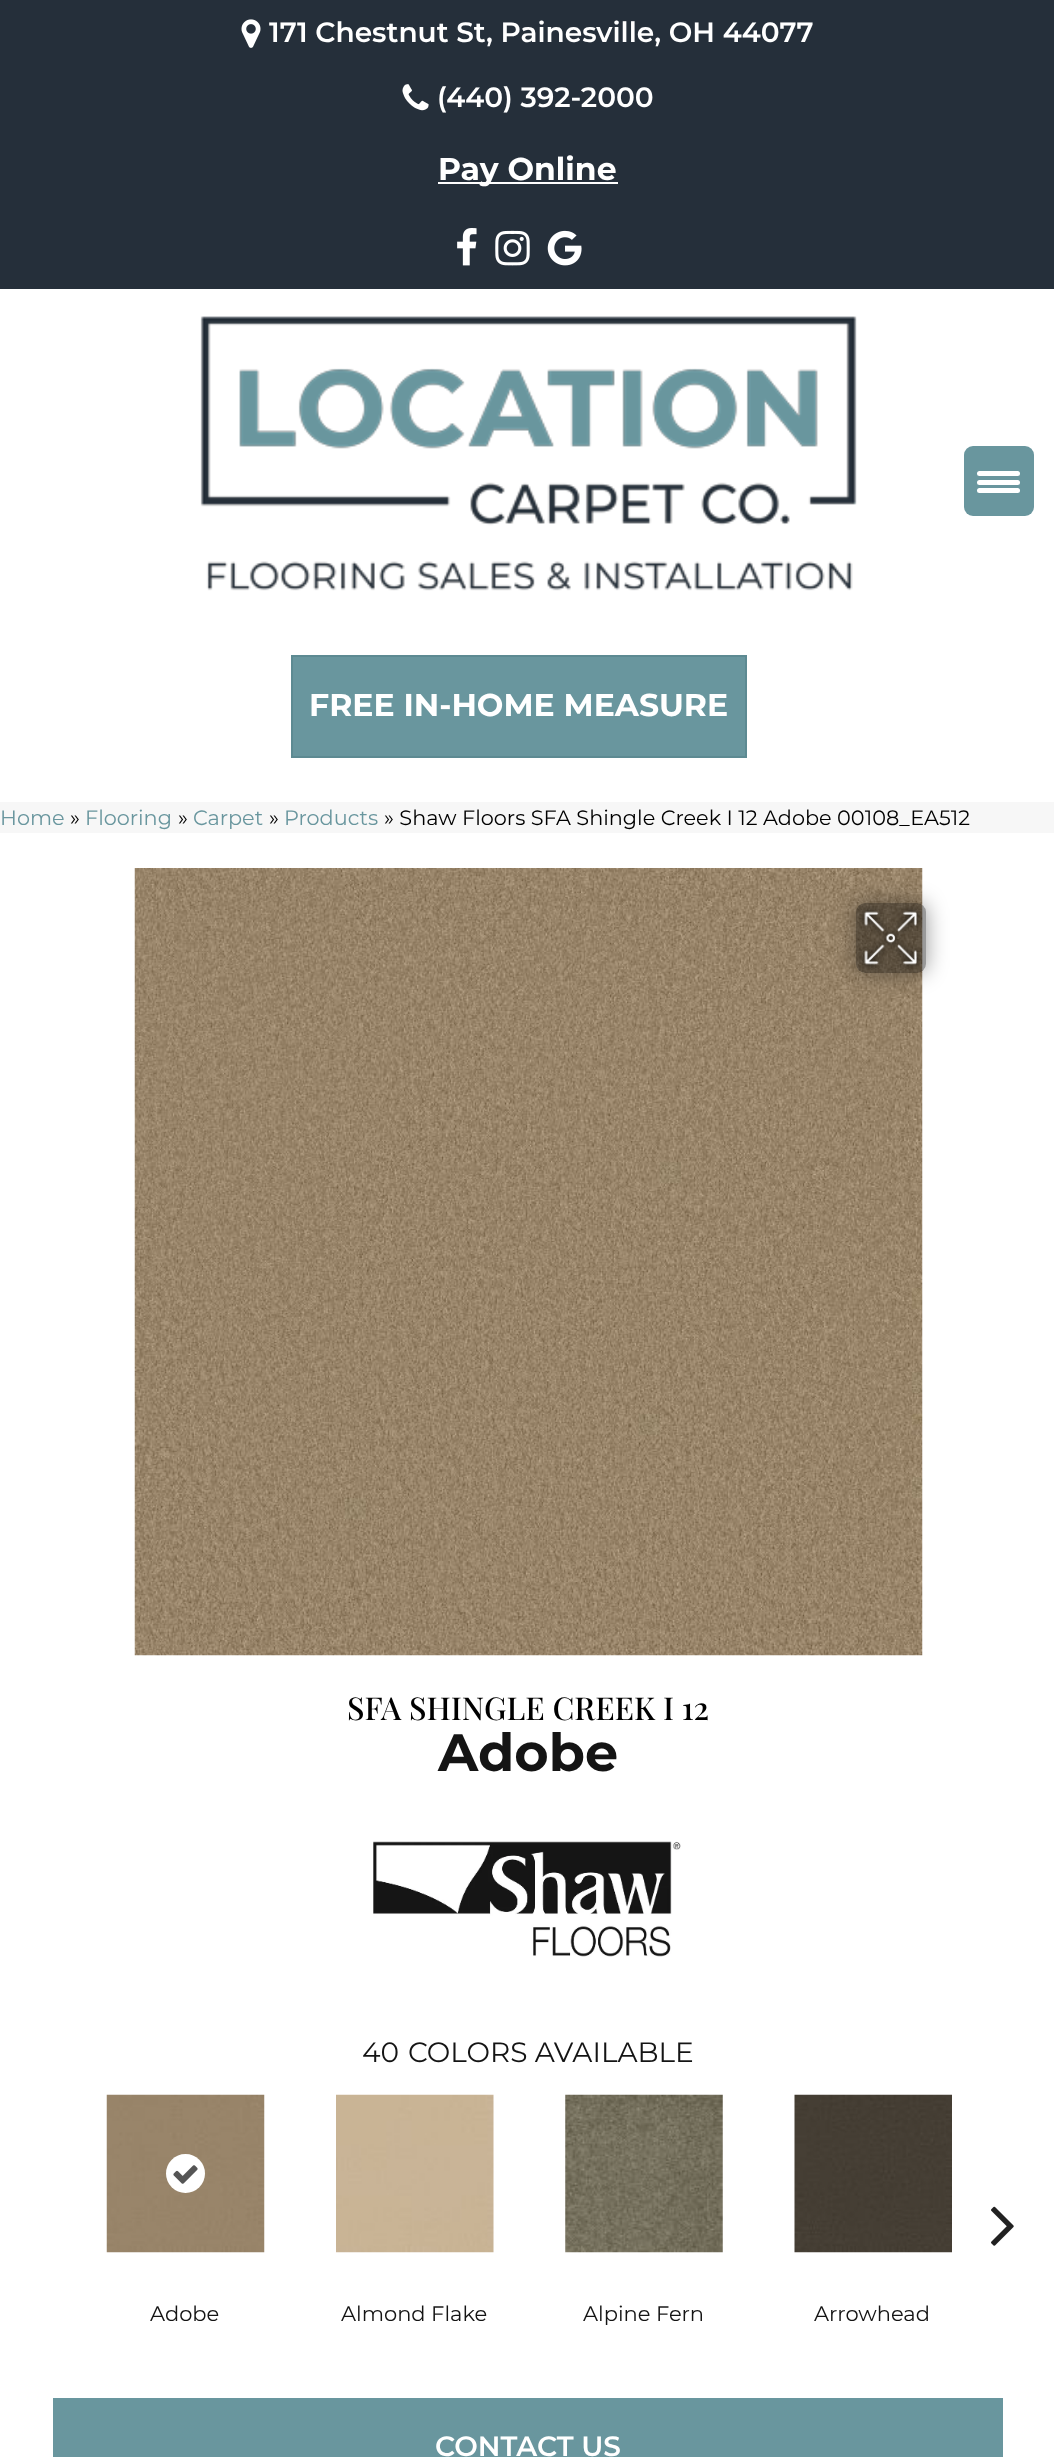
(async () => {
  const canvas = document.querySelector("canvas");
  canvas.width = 1054;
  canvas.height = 2457;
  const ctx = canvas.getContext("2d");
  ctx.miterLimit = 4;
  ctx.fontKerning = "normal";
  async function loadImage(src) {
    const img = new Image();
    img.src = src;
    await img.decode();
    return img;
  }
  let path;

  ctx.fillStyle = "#ffffff";
  ctx.fillRect(0, 0, 1054, 2457);
  ctx.fillStyle = "#252f3a";
  ctx.fillRect(0, 0, 1054, 289);
  ctx.drawImage(await loadImage("img/1.png"), 241, 19, 20, 29);
  ctx.drawImage(await loadImage("img/2.png"), 402, 84, 27, 27);
  ctx.fillStyle = "#ffffff";
  ctx.fillRect(438, 182, 180, 2);
  ctx.drawImage(await loadImage("img/3.png"), 457, 228, 20, 38);
  ctx.drawImage(await loadImage("img/4.png"), 495, 230, 35, 36);
  ctx.drawImage(await loadImage("img/5.png"), 547, 230, 35, 36);
  ctx.drawImage(await loadImage("img/6.png"), 200, 316, 657, 275);
  ctx.fillStyle = "#69969e";
  ctx.beginPath();
  ctx.rect(292, 656, 454, 101);
  ctx.fill();
  ctx.strokeStyle = "#5d8a92";
  ctx.lineWidth = 2;
  ctx.stroke();
  ctx.fillStyle = "#f7f7f7";
  ctx.fillRect(0, 802, 1054, 31);
  ctx.drawImage(await loadImage("img/7.png"), 134, 868, 789, 788);
  ctx.save();
  path = new Path2D("M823 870H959V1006H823ZM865 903H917C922 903 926 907 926 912V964C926 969 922 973 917 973H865C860 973 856 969 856 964V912C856 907 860 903 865 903Z");
  ctx.clip(path, "evenodd");
  ctx.fillStyle = "rgba(0, 0, 0, 0.41)";
  ctx.filter = "blur(10.5px)";
  ctx.beginPath();
  ctx.roundRect(856, 903, 70, 70, 9);
  ctx.fill();
  ctx.filter = "none";
  ctx.restore();
  ctx.fillStyle = "rgba(0, 0, 0, 0.4)";
  ctx.beginPath();
  ctx.roundRect(856, 903, 70, 70, 9);
  ctx.fill();
  ctx.drawImage(await loadImage("img/8.png"), 859, 906, 64, 64);
  ctx.drawImage(await loadImage("img/9.png"), 373, 1841, 308, 116);
  ctx.drawImage(await loadImage("img/10.png"), 991, 2206, 23, 40);
  ctx.drawImage(await loadImage("img/11.png"), 106, 2094, 159, 159);
  ctx.fillStyle = "#ffffff";
  ctx.beginPath();
  ctx.arc(185.5, 2173.5, 19.5, 0, Math.PI * 2);
  ctx.fill();
  ctx.drawImage(await loadImage("img/12.png"), 173, 2165, 25, 19);
  ctx.drawImage(await loadImage("img/13.png"), 336, 2094, 158, 159);
  ctx.drawImage(await loadImage("img/14.png"), 565, 2094, 158, 159);
  ctx.drawImage(await loadImage("img/15.png"), 794, 2094, 158, 159);
  ctx.fillStyle = "#69969e";
  ctx.fillRect(53, 2398, 950, 59);
  ctx.beginPath();
  ctx.roundRect(964, 446, 70, 70, 9);
  ctx.fill();
  ctx.fillStyle = "#ffffff";
  ctx.beginPath();
  ctx.roundRect(977, 480, 43, 5, 2.5);
  ctx.fill();
  ctx.beginPath();
  ctx.roundRect(977, 471, 43, 5, 2.5);
  ctx.fill();
  ctx.beginPath();
  ctx.roundRect(977, 488, 43, 5, 2.5);
  ctx.fill();
  ctx.font = "600 28px Montserrat";
  ctx.fillText("171 Chestnut St, Painesville, OH 44077", 269, 42);
  ctx.fillText("(440) 392-2000", 437, 107);
  ctx.font = "bold 31.5px Montserrat";
  ctx.fillText("Pay Online", 438, 180);
  ctx.fillText("FREE IN-HOME MEASURE", 309, 716);
  ctx.font = "20.8px Montserrat";
  ctx.fillStyle = "#69969e";
  ctx.fillText("Home", 0, 825);
  ctx.fillStyle = "#000000";
  ctx.fillText("»", 70, 825);
  ctx.fillStyle = "#69969e";
  ctx.fillText("Flooring", 85, 825);
  ctx.fillStyle = "#000000";
  ctx.fillText("»", 178, 825);
  ctx.fillStyle = "#69969e";
  ctx.fillText("Carpet", 193, 825);
  ctx.fillStyle = "#000000";
  ctx.fillText("»", 269, 825);
  ctx.fillStyle = "#69969e";
  ctx.fillText("Products", 284, 825);
  ctx.fillStyle = "#000000";
  ctx.fillText("» Shaw Floors SFA Shingle Creek I 12 Adobe 00108_EA512", 384, 825);
  ctx.font = "500 31.5px Playfair Display";
  ctx.fillText("SFA SHINGLE CREEK I 12", 347, 1720);
  ctx.font = "bold 52.5px Montserrat";
  ctx.fillStyle = "#141414";
  ctx.fillText("Adobe", 438, 1771);
  ctx.font = "28px Montserrat";
  ctx.fillText("40", 362, 2062);
  ctx.fillText("COLORS AVAILABLE", 408, 2062);
  ctx.font = "21px Montserrat";
  for (const [text, x, y] of [
    ["Adobe", 150, 2321],
    ["Almond Flake", 341, 2321],
    ["Alpine Fern", 583, 2321],
    ["Arrowhead", 814, 2321],
  ]) {
    ctx.fillText(text, x, y);
  }
  ctx.font = "600 28px Montserrat";
  ctx.fillStyle = "#ffffff";
  ctx.fillText("CONTACT US", 435, 2456);
})();
